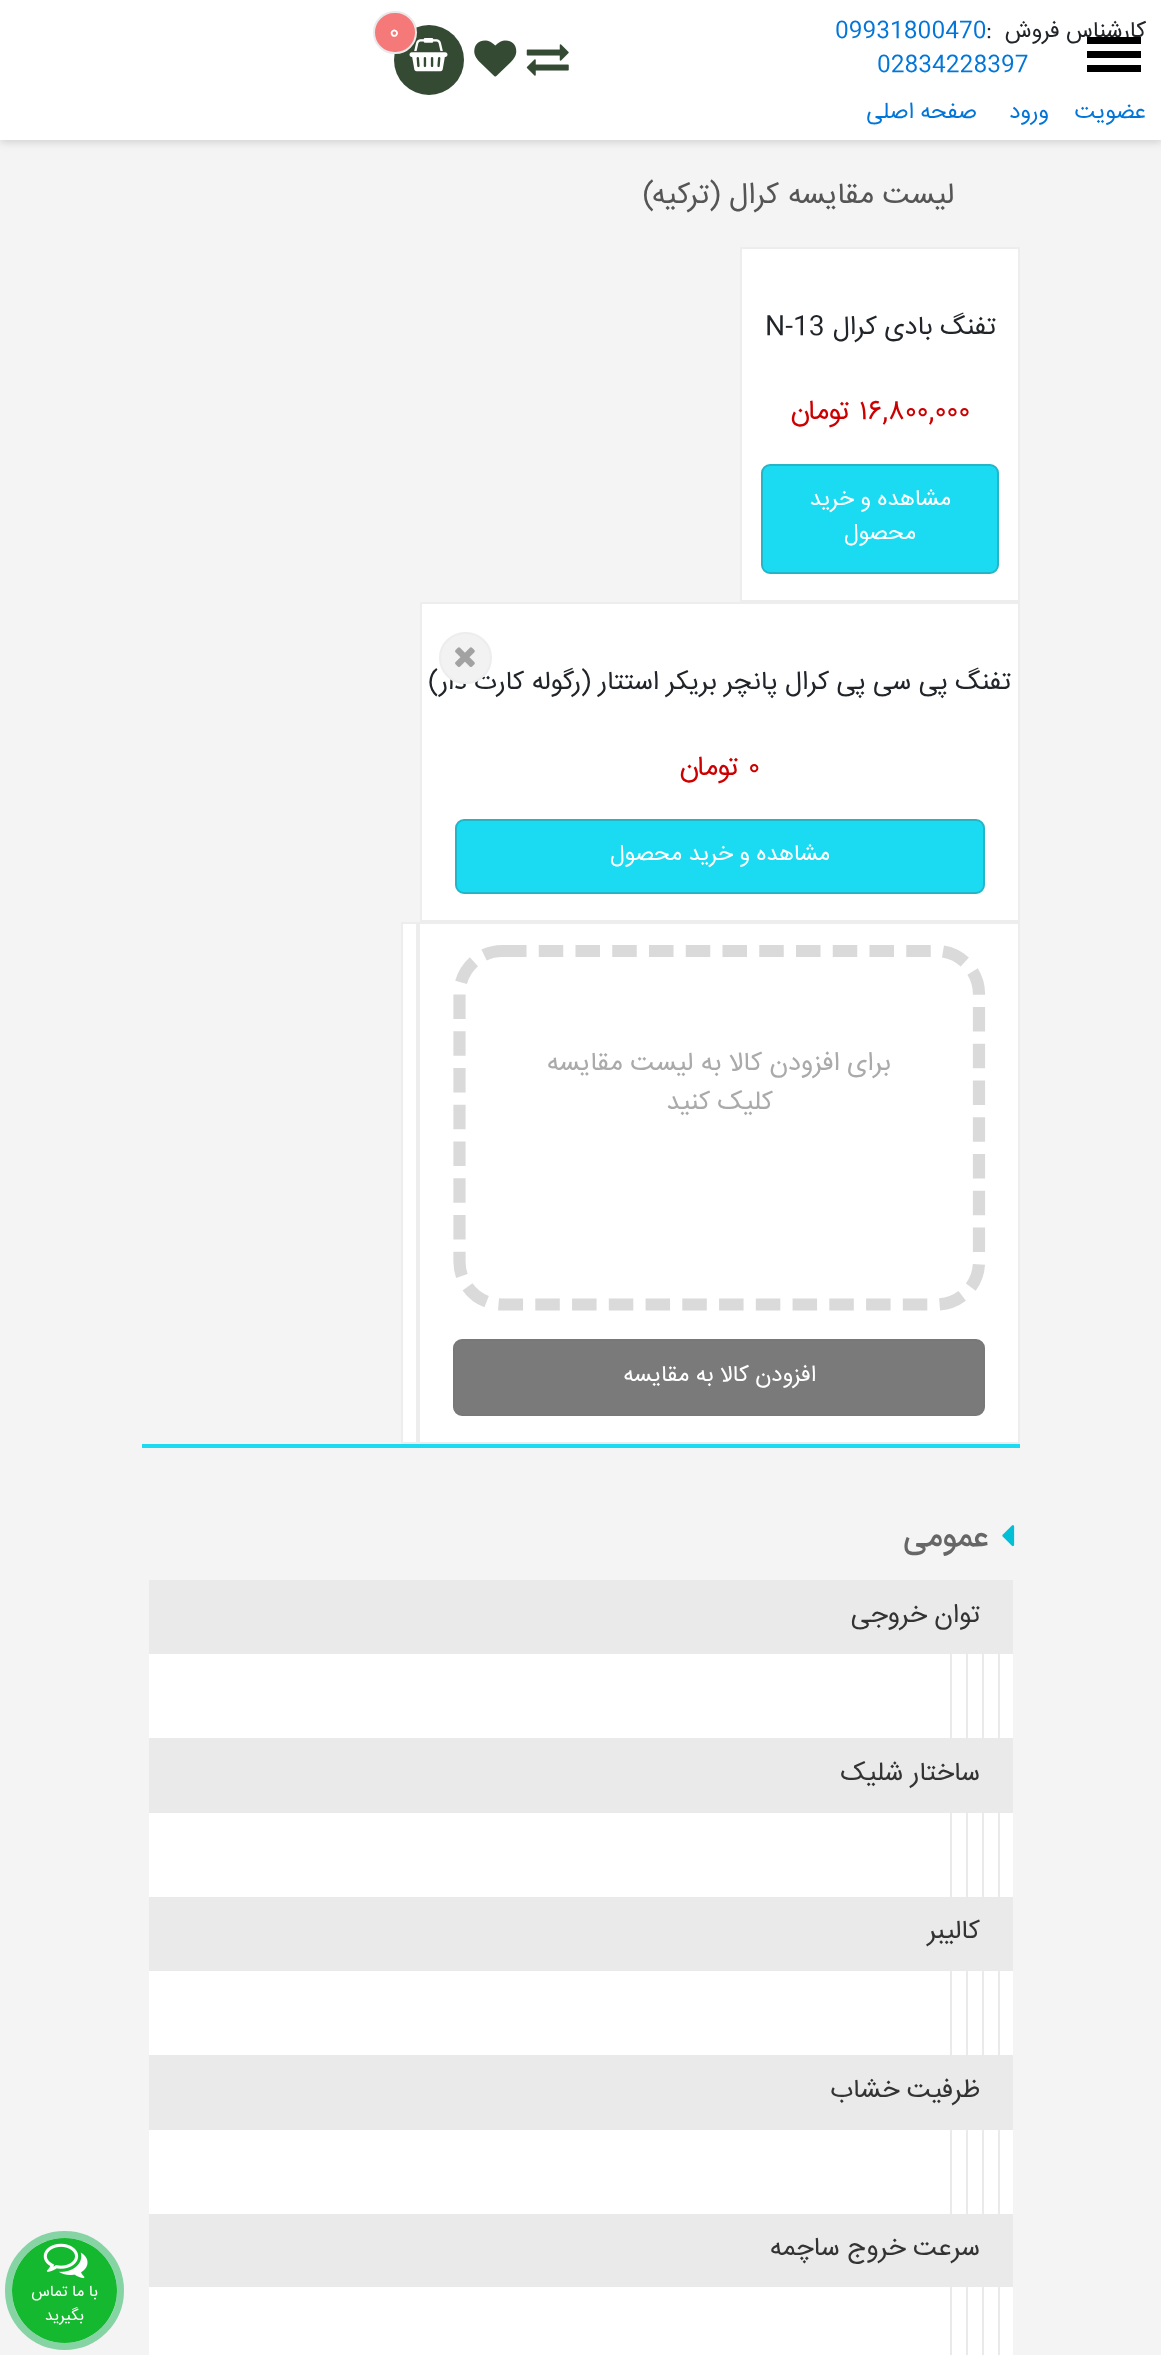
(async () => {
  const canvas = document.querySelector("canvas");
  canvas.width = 1161;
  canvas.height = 2355;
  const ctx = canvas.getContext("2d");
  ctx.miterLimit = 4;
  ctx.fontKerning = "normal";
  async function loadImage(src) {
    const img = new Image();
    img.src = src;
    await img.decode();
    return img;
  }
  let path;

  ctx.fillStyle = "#f4f4f4";
  ctx.fillRect(0, 0, 1161, 2355);
  ctx.fillStyle = "rgba(0, 0, 0, 0.15)";
  ctx.filter = "blur(4.5px)";
  ctx.beginPath();
  ctx.rect(0, -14, 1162, 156);
  ctx.fill();
  ctx.filter = "none";
  ctx.fillStyle = "#ffffff";
  ctx.fillRect(0, 0, 1161, 140);
  ctx.fillStyle = "#344a33";
  ctx.beginPath();
  ctx.arc(429, 60, 35, 0, Math.PI * 2);
  ctx.fill();
  ctx.drawImage(await loadImage("img/1.png"), 409, 38, 39, 34);
  ctx.fillStyle = "#f57979";
  ctx.beginPath();
  ctx.roundRect(374, 12, 42, 41, 20.5);
  ctx.fill();
  ctx.strokeStyle = "#e9e9e9";
  ctx.lineWidth = 2;
  ctx.stroke();
  ctx.drawImage(await loadImage("img/2.png"), 526, 44, 43, 32);
  ctx.drawImage(await loadImage("img/3.png"), 474, 40, 43, 37);
  for (const [x, y, w, h, color] of [
    [1087, 51, 54, 7, "#000000"],
    [1087, 65, 54, 7, "#000000"],
    [142, 1444, 878, 4, "#1bdbf2"],
  ]) {
    ctx.fillStyle = color;
    ctx.fillRect(x, y, w, h);
  }
  ctx.fillStyle = "#ffffff";
  ctx.beginPath();
  ctx.rect(741, 248, 278, 353);
  ctx.fill();
  ctx.strokeStyle = "#ededed";
  ctx.stroke();
  ctx.fillStyle = "#1bdbf2";
  ctx.beginPath();
  ctx.roundRect(762, 465, 236, 108, 8);
  ctx.fill();
  ctx.strokeStyle = "#26b5c6";
  ctx.stroke();
  ctx.fillStyle = "#ffffff";
  ctx.beginPath();
  ctx.rect(421, 603, 598, 318);
  ctx.fill();
  ctx.strokeStyle = "#ededed";
  ctx.stroke();
  ctx.fillStyle = "#1bdbf2";
  ctx.beginPath();
  ctx.roundRect(456, 820, 528, 73, 8);
  ctx.fill();
  ctx.strokeStyle = "#26b5c6";
  ctx.stroke();
  ctx.fillStyle = "#ffffff";
  ctx.beginPath();
  ctx.rect(419, 923, 600, 520);
  ctx.fill();
  ctx.strokeStyle = "#ededed";
  ctx.stroke();
  path = new Path2D("M502 951H936C960 951 979 970.5 979 994V1262C979 1285.5 960 1304.5 936 1304.5H502C478.5 1304.5 459.5 1285.5 459.5 1262V994C459.5 970.5 478.5 951 502 951Z");
  ctx.strokeStyle = "#dadada";
  ctx.lineWidth = 12.2;
  ctx.setLineDash([24.5, 12.25]);
  ctx.stroke(path);
  ctx.fillStyle = "#7a7a7a";
  ctx.beginPath();
  ctx.roundRect(454, 1340, 530, 75, 8);
  ctx.fill();
  ctx.strokeStyle = "#787878";
  ctx.lineWidth = 2;
  ctx.setLineDash([]);
  ctx.stroke();
  ctx.fillStyle = "#ffffff";
  ctx.beginPath();
  ctx.rect(402, 923, 15, 520);
  ctx.fill();
  ctx.strokeStyle = "#ededed";
  ctx.stroke();
  ctx.drawImage(await loadImage("img/5.png"), 1002, 1525, 13, 22);
  for (const [x, y, w, h, color] of [
    [149, 1654, 864, 84, "#ffffff"],
    [149, 1580, 864, 74, "#eaeaea"],
    [998, 1654, 2, 84, "#eaeaea"],
    [982, 1654, 2, 84, "#eaeaea"],
    [966, 1654, 2, 84, "#eaeaea"],
    [950, 1654, 2, 84, "#eaeaea"],
    [149, 1813, 864, 84, "#ffffff"],
    [149, 1738, 864, 75, "#eaeaea"],
    [998, 1813, 2, 84, "#eaeaea"],
    [982, 1813, 2, 84, "#eaeaea"],
    [966, 1813, 2, 84, "#eaeaea"],
    [950, 1813, 2, 84, "#eaeaea"],
    [149, 1971, 864, 84, "#ffffff"],
    [149, 1897, 864, 74, "#eaeaea"],
    [998, 1971, 2, 84, "#eaeaea"],
    [982, 1971, 2, 84, "#eaeaea"],
    [966, 1971, 2, 84, "#eaeaea"],
    [950, 1971, 2, 84, "#eaeaea"],
    [149, 2130, 864, 84, "#ffffff"],
    [149, 2055, 864, 75, "#eaeaea"],
    [998, 2130, 2, 84, "#eaeaea"],
    [982, 2130, 2, 84, "#eaeaea"],
    [966, 2130, 2, 84, "#eaeaea"],
    [950, 2130, 2, 84, "#eaeaea"],
    [149, 2287, 864, 68, "#ffffff"],
    [149, 2214, 864, 73, "#eaeaea"],
    [998, 2287, 2, 68, "#eaeaea"],
    [982, 2287, 2, 68, "#eaeaea"],
    [966, 2287, 2, 68, "#eaeaea"],
    [950, 2287, 2, 68, "#eaeaea"],
  ]) {
    ctx.fillStyle = color;
    ctx.fillRect(x, y, w, h);
  }
  ctx.fillStyle = "#15b92f";
  ctx.beginPath();
  ctx.arc(64.5, 2290.5, 52.5, 0, Math.PI * 2);
  ctx.fill();
  ctx.drawImage(await loadImage("img/6.png"), 43, 2243, 45, 36);
  ctx.direction = "rtl";
  ctx.font = "22.75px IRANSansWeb";
  ctx.fillStyle = "#212529";
  ctx.fillText("کارشناس فروش", 1146, 37);
  ctx.direction = "ltr";
  ctx.fillText(":", 986, 37);
  ctx.fillStyle = "#0275d8";
  ctx.fillText("09931800470", 835, 37);
  ctx.fillText("02834228397", 877, 71);
  ctx.direction = "rtl";
  for (const [text, x, y] of [
    ["عضویت", 1146, 118],
    ["ورود", 1049, 118],
    ["صفحه اصلی", 977, 118],
  ]) {
    ctx.fillText(text, x, y);
  }
  ctx.direction = "ltr";
  ctx.font = "24px IRANSansWeb";
  ctx.fillStyle = "#ffffff";
  ctx.fillText("۰", 389, 39);
  ctx.fillStyle = "#000000";
  ctx.fillRect(1087, 37, 54, 7);
  ctx.direction = "rtl";
  ctx.font = "29.75px IRANSansWeb";
  ctx.fillStyle = "#555555";
  ctx.fillText("لیست مقایسه", 954, 203);
  ctx.fillText("کرال (ترکیه)", 779, 203);
  ctx.font = "26.25px IRANSansWeb";
  ctx.fillStyle = "#212529";
  ctx.fillText("تفنگ بادی کرال", 996, 334);
  ctx.direction = "ltr";
  ctx.fillText("N-13", 765, 334);
  ctx.font = "28px IRANSansWeb";
  ctx.fillStyle = "#cc0000";
  ctx.fillText("۱۶,۸۰۰,۰۰۰", 859, 419);
  ctx.direction = "rtl";
  ctx.fillText("تومان", 851, 419);
  ctx.font = "22.75px IRANSansWeb";
  ctx.fillStyle = "#ffffff";
  ctx.fillText("مشاهده و خرید", 951, 505);
  ctx.fillText("محصول", 916, 539);
  ctx.font = "26.25px IRANSansWeb";
  ctx.fillStyle = "#212529";
  ctx.fillText("تفنگ پی سی پی کرال پانچر بریکر استتار (رگوله کارت دار)", 1011, 689);
  ctx.fillStyle = "#f2f2f2";
  ctx.beginPath();
  ctx.roundRect(440, 633, 51, 50, 25);
  ctx.fill();
  ctx.stroke();
  ctx.drawImage(await loadImage("img/4.png"), 455, 647, 20, 20);
  ctx.direction = "ltr";
  ctx.font = "28px IRANSansWeb";
  ctx.fillStyle = "#cc0000";
  ctx.fillText("۰", 748, 775);
  ctx.direction = "rtl";
  ctx.fillText("تومان", 740, 775);
  ctx.font = "22.75px IRANSansWeb";
  ctx.fillStyle = "#ffffff";
  ctx.fillText("مشاهده و خرید محصول", 830, 860);
  ctx.font = "26.25px IRANSansWeb";
  ctx.fillStyle = "#aaaaaa";
  ctx.fillText("برای افزودن کالا به لیست مقایسه", 891, 1070);
  ctx.fillText("کلیک کنید", 773, 1109);
  ctx.font = "22.75px IRANSansWeb";
  ctx.fillStyle = "#ffffff";
  ctx.fillText("افزودن کالا به مقایسه", 816, 1381);
  ctx.font = "500 31.5px IRANSansWeb";
  ctx.fillStyle = "#666666";
  ctx.fillText("عمومی", 988, 1546);
  ctx.font = "26.25px IRANSansWeb";
  ctx.fillStyle = "#333333";
  for (const [text, x, y] of [
    ["توان خروجی", 980, 1622],
    ["ساختار شلیک", 980, 1780],
    ["کالیبر", 980, 1938],
    ["ظرفیت خشاب", 980, 2097],
    ["سرعت خروج ساچمه", 980, 2255],
  ]) {
    ctx.fillText(text, x, y);
  }
  ctx.font = "15.75px IRANSansWeb";
  ctx.fillStyle = "#ffffff";
  ctx.fillText("با ما تماس", 98, 2296);
  ctx.fillText("بگیرید", 84, 2320);
  ctx.beginPath();
  ctx.arc(64.5, 2290.5, 56, 0, Math.PI * 2);
  ctx.strokeStyle = "rgba(23, 179, 84, 0.5)";
  ctx.lineWidth = 7;
  ctx.stroke();
})();
